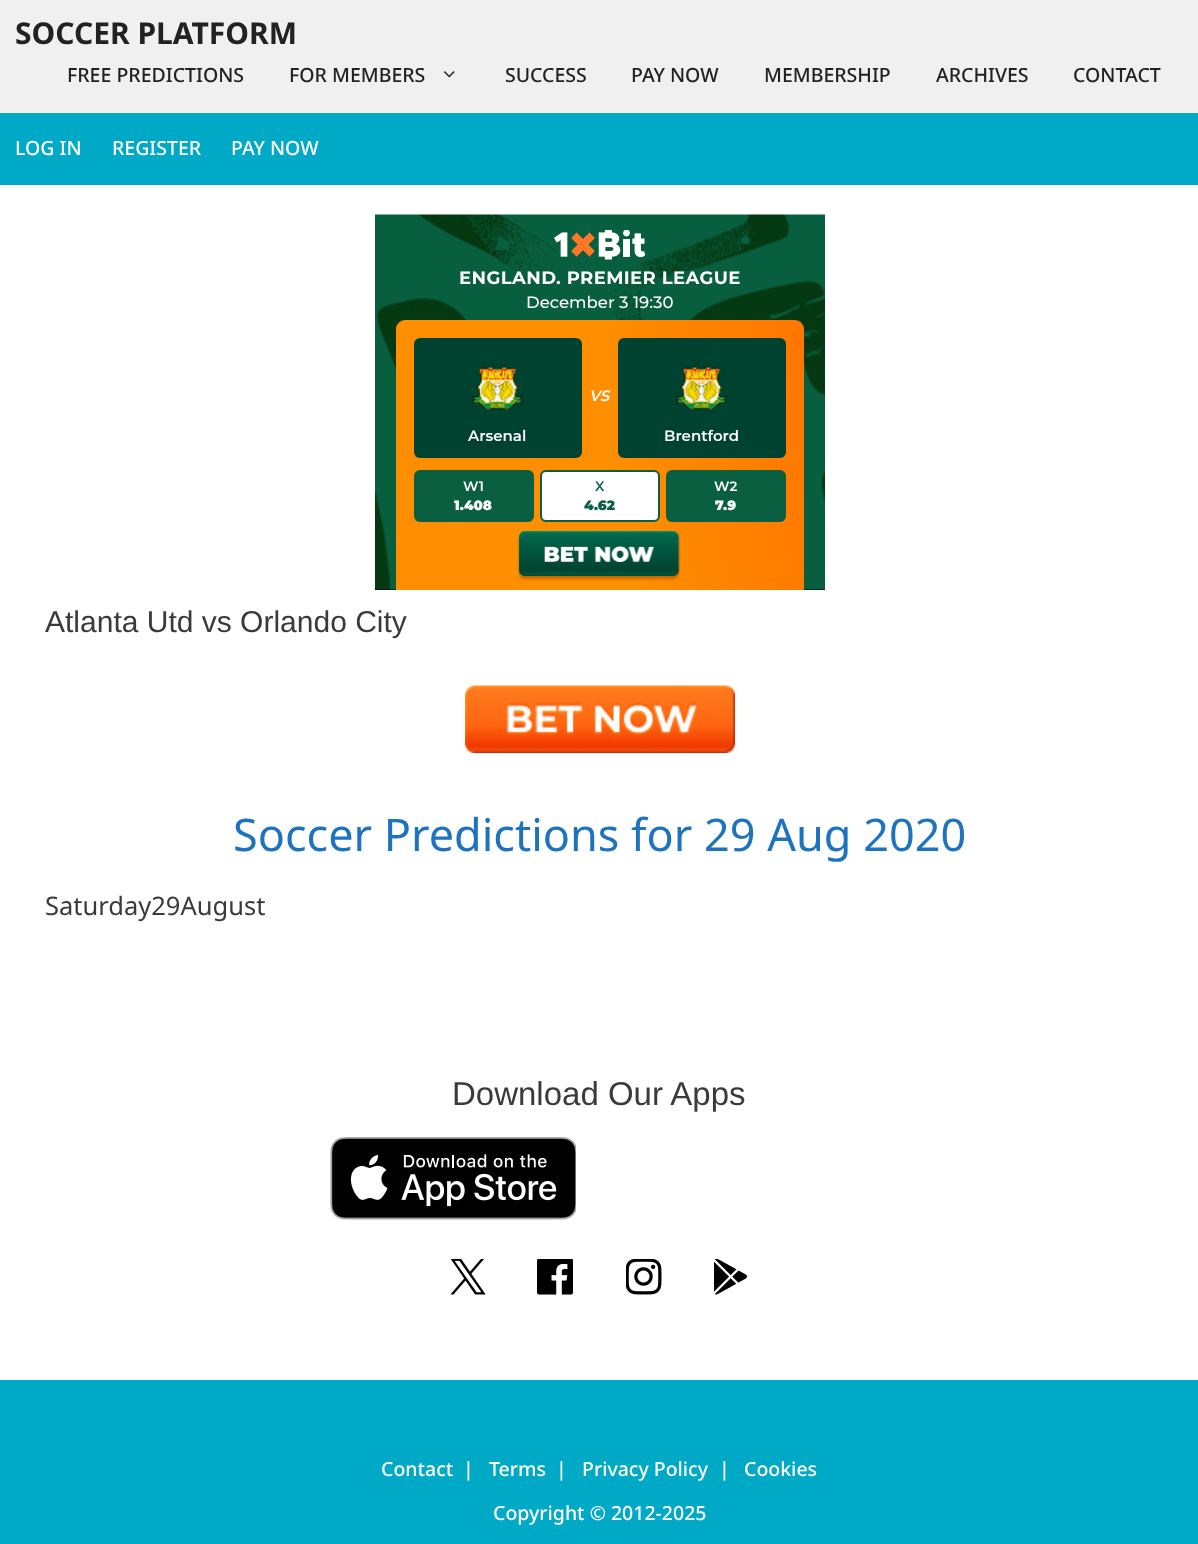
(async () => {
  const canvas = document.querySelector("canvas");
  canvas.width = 1198;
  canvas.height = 1544;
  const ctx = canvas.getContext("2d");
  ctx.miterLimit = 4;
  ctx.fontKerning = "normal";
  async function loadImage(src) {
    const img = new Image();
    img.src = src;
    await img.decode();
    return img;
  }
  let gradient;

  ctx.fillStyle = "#ffffff";
  ctx.fillRect(0, 0, 1198, 1544);
  ctx.fillStyle = "#f0f0f0";
  ctx.fillRect(0, 0, 1198, 113);
  ctx.drawImage(await loadImage("img/1.png"), 443, 71, 12, 7);
  ctx.fillStyle = "#00aac6";
  ctx.fillRect(0, 113, 1198, 72);
  ctx.fillStyle = "#000000";
  ctx.fillRect(375, 589, 450, 1);
  ctx.drawImage(await loadImage("img/2.png"), 375, 214, 450, 376);
  ctx.drawImage(await loadImage("img/3.png"), 554, 230, 91, 30);
  gradient = ctx.createLinearGradient(820, 420, 380, 489);
  gradient.addColorStop(0.01, "#ff7700");
  gradient.addColorStop(0.48, "#ff8f00");
  gradient.addColorStop(0.98, "#ff8e00");
  ctx.fillStyle = gradient;
  ctx.beginPath();
  ctx.roundRect(396, 320, 408, 270, [9, 9, 0, 0]);
  ctx.fill();
  ctx.fillStyle = "#004230";
  ctx.beginPath();
  ctx.roundRect(414, 338, 168, 120, 6);
  ctx.fill();
  ctx.drawImage(await loadImage("img/4.png"), 472, 365, 52, 45);
  ctx.beginPath();
  ctx.roundRect(618, 338, 168, 120, 6);
  ctx.fill();
  ctx.drawImage(await loadImage("img/5.png"), 676, 365, 52, 45);
  ctx.fillStyle = "#095f3f";
  ctx.beginPath();
  ctx.roundRect(414, 470, 120, 52, 6);
  ctx.fill();
  ctx.fillStyle = "#ffffff";
  ctx.beginPath();
  ctx.roundRect(541, 471, 118, 50, 5);
  ctx.fill();
  ctx.strokeStyle = "#095f3f";
  ctx.lineWidth = 2;
  ctx.stroke();
  ctx.fillStyle = "#095f3f";
  ctx.beginPath();
  ctx.roundRect(666, 470, 120, 52, 6);
  ctx.fill();
  ctx.drawImage(await loadImage("img/6.png"), 517, 531, 164, 50);
  ctx.drawImage(await loadImage("img/7.png"), 465, 685, 270, 68);
  ctx.drawImage(await loadImage("img/8.png"), 330, 1137, 246, 83);
  ctx.drawImage(await loadImage("img/9.png"), 450, 1259, 36, 36);
  ctx.drawImage(await loadImage("img/10.png"), 537, 1259, 36, 36);
  ctx.drawImage(await loadImage("img/11.png"), 626, 1259, 36, 36);
  ctx.drawImage(await loadImage("img/12.png"), 714, 1259, 33, 36);
  ctx.fillStyle = "#00aac6";
  ctx.fillRect(0, 1380, 1198, 164);
  ctx.font = "bold 30px Noto Sans";
  ctx.fillStyle = "#222222";
  ctx.fillText("SOCCER PLATFORM", 15, 44);
  ctx.font = "500 19.5px Noto Sans";
  for (const [text, x, y] of [
    ["FREE PREDICTIONS", 67, 82],
    ["FOR MEMBERS", 289, 82],
    ["SUCCESS", 505, 82],
    ["PAY NOW", 631, 82],
    ["MEMBERSHIP", 764, 82],
    ["ARCHIVES", 936, 82],
    ["CONTACT", 1073, 82],
  ]) {
    ctx.fillText(text, x, y);
  }
  ctx.fillStyle = "#ffffff";
  for (const [text, x, y] of [
    ["LOG IN", 15, 155],
    ["REGISTER", 112, 155],
    ["PAY NOW", 231, 155],
  ]) {
    ctx.fillText(text, x, y);
  }
  ctx.letterSpacing = "0.4px";
  ctx.font = "bold 18px Montserrat";
  ctx.fillText("ENGLAND. PREMIER LEAGUE", 459, 284);
  ctx.letterSpacing = "0px";
  ctx.font = "500 16.5px Montserrat";
  ctx.fillText("December 3 19:30", 526, 308);
  ctx.font = "italic 600 15px Montserrat";
  ctx.fillText("VS", 589, 401);
  ctx.font = "600 15px Montserrat";
  ctx.fillText("Arsenal", 468, 441);
  ctx.fillText("Brentford", 664, 441);
  ctx.font = "600 13.5px Montserrat";
  ctx.fillText("W1", 463, 491);
  ctx.font = "900 13.5px Montserrat";
  ctx.fillText("1.408", 454, 510);
  ctx.font = "600 13.5px Montserrat";
  ctx.fillStyle = "#095f3f";
  ctx.fillText("X", 595, 491);
  ctx.font = "900 13.5px Montserrat";
  ctx.fillText("4.62", 584, 510);
  ctx.font = "600 13.5px Montserrat";
  ctx.fillStyle = "#ffffff";
  ctx.fillText("W2", 714, 491);
  ctx.font = "900 13.5px Montserrat";
  ctx.fillText("7.9", 715, 510);
  ctx.font = "30px Liberation Sans";
  ctx.fillStyle = "#3a3a3a";
  ctx.fillText("Atlanta Utd vs Orlando City", 45, 632);
  ctx.font = "45px Noto Sans";
  ctx.fillStyle = "#1e73be";
  ctx.fillText("Soccer Predictions for 29 Aug 2020", 233, 851);
  ctx.font = "25.5px Noto Sans";
  ctx.fillStyle = "#3a3a3a";
  ctx.fillText("Saturday29August", 45, 915);
  ctx.font = "33px Liberation Sans";
  ctx.fillText("Download Our Apps", 452, 1105);
  ctx.font = "500 19.5px Noto Sans";
  ctx.fillStyle = "#ffffff";
  for (const [text, x, y] of [
    ["Contact", 381, 1476],
    ["|", 463, 1476],
    ["Terms", 489, 1476],
    ["|", 556, 1476],
    ["Privacy Policy", 582, 1476],
    ["|", 719, 1476],
    ["Cookies", 744, 1476],
    ["Copyright © 2012-2025", 493, 1520],
  ]) {
    ctx.fillText(text, x, y);
  }
})();
